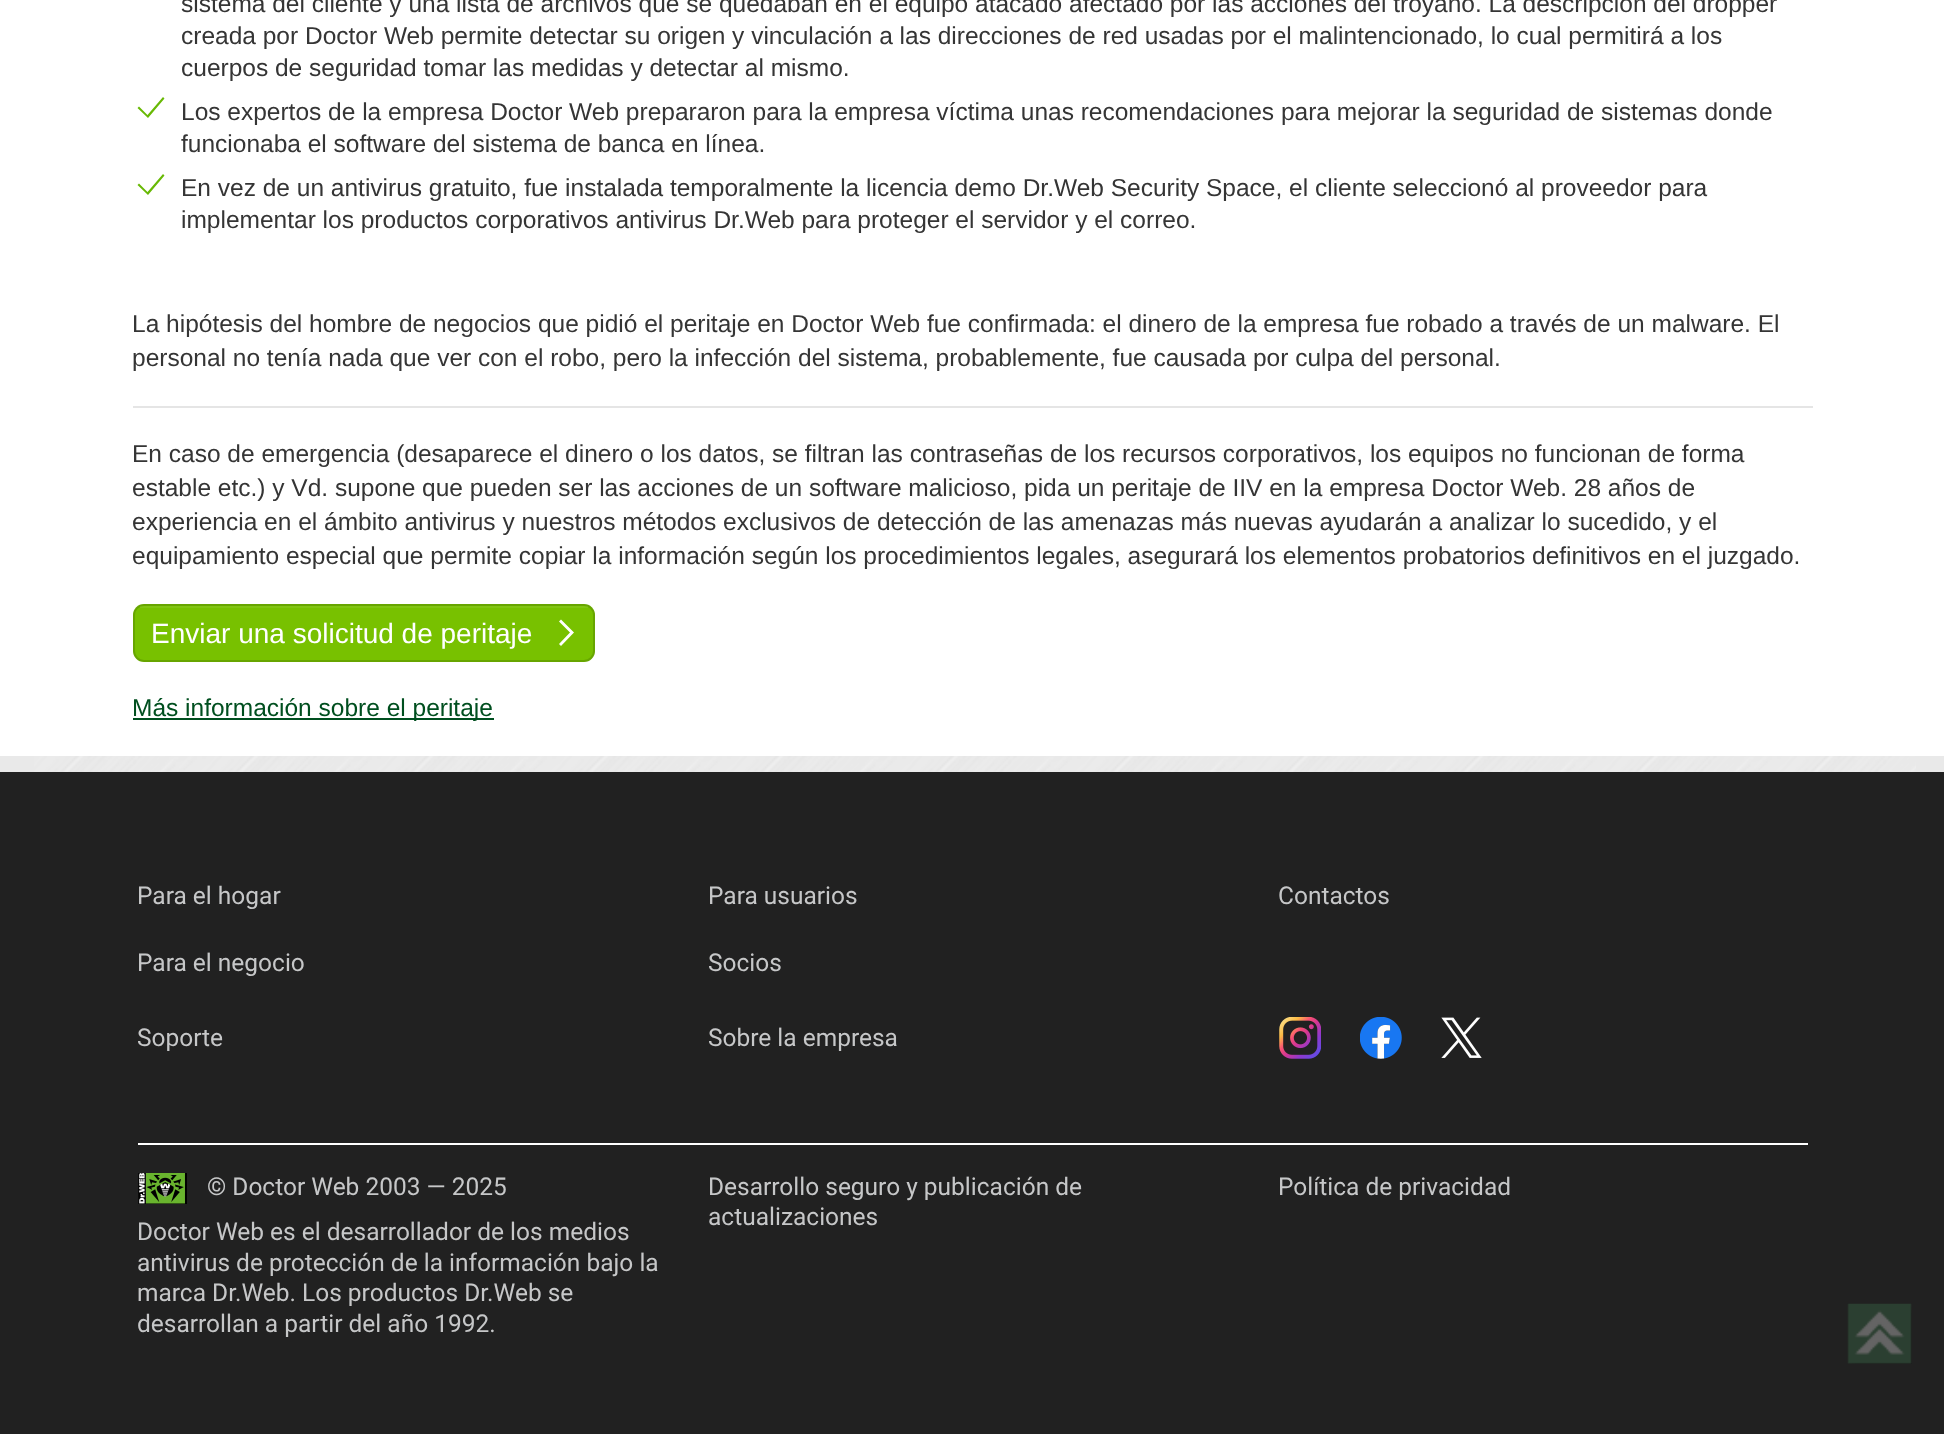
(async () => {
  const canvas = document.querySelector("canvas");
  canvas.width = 1944;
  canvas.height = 1434;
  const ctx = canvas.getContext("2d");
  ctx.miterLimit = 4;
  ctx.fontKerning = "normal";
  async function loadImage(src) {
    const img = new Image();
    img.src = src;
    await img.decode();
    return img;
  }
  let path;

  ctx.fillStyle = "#e9e9e9";
  ctx.fillRect(0, 0, 1944, 1434);
  ctx.drawImage(await loadImage("img/1.png"), 34, 756, 1882, 16);
  ctx.fillStyle = "#ffffff";
  ctx.fillRect(0, 0, 1944, 756);
  ctx.fillStyle = "#68b905";
  path = new Path2D("M139 106.5L137.5 108L148 118L164.5 98.5L163 97L147.5 115Z");
  ctx.fill(path, "evenodd");
  path = new Path2D("M139 183.5L137.5 185L148 195L164.5 175.5L163 174L147.5 192Z");
  ctx.fill(path, "evenodd");
  ctx.fillStyle = "#e5e5e5";
  ctx.fillRect(133, 406, 1680, 2);
  ctx.fillStyle = "#78c100";
  ctx.beginPath();
  ctx.roundRect(133, 604, 462, 58, 11);
  ctx.fill();
  ctx.beginPath();
  ctx.roundRect(134, 605, 460, 56, 10);
  ctx.strokeStyle = "rgba(0, 0, 0, 0.14)";
  ctx.lineWidth = 2;
  ctx.stroke();
  ctx.fillStyle = "rgba(255, 255, 255, 0.07)";
  ctx.fillRect(140, 606, 448, 2);
  ctx.fillStyle = "#ffffff";
  path = new Path2D("M561 646L559 644L570 632.5L559 621.5L561 619.5L574 632.5Z");
  ctx.fill(path);
  ctx.fillStyle = "#004f1f";
  ctx.fillRect(133, 718, 361, 2);
  ctx.fillStyle = "#212121";
  ctx.fillRect(0, 772, 1944, 662);
  ctx.drawImage(await loadImage("img/2.png"), 1279, 1017, 42, 42);
  ctx.drawImage(await loadImage("img/3.png"), 1360, 1017, 42, 42);
  ctx.drawImage(await loadImage("img/4.png"), 1441, 1017, 41, 41);
  ctx.fillStyle = "#ffffff";
  ctx.fillRect(138, 1143, 1670, 2);
  ctx.drawImage(await loadImage("img/5.png"), 138, 1173, 49, 31);
  ctx.drawImage(await loadImage("img/6.png"), 1847, 1303, 65, 61);
  ctx.font = "24.5px Liberation Sans";
  ctx.fillStyle = "#353535";
  for (const [text, x, y] of [
    ["sistema del cliente y una lista de archivos que se quedaban en el equipo atacado afectado por las acciones del troyano. La descripción del dropper", 181, 12],
    ["creada por Doctor Web permite detectar su origen y vinculación a las direcciones de red usadas por el malintencionado, lo cual permitirá a los", 181, 44],
    ["cuerpos de seguridad tomar las medidas y detectar al mismo.", 181, 76],
    ["Los expertos de la empresa Doctor Web prepararon para la empresa víctima unas recomendaciones para mejorar la seguridad de sistemas donde", 181, 120],
    ["funcionaba el software del sistema de banca en línea.", 181, 152],
    ["En vez de un antivirus gratuito, fue instalada temporalmente la licencia demo Dr.Web Security Space, el cliente seleccionó al proveedor para", 181, 196],
    ["implementar los productos corporativos antivirus Dr.Web para proteger el servidor y el correo.", 181, 228],
    ["La hipótesis del hombre de negocios que pidió el peritaje en Doctor Web fue confirmada: el dinero de la empresa fue robado a través de un malware. El", 132, 332],
    ["personal no tenía nada que ver con el robo, pero la infección del sistema, probablemente, fue causada por culpa del personal.", 132, 366],
    ["En caso de emergencia (desaparece el dinero o los datos, se filtran las contraseñas de los recursos corporativos, los equipos no funcionan de forma", 132, 462],
    ["estable etc.) y Vd. supone que pueden ser las acciones de un software malicioso, pida un peritaje de IIV en la empresa Doctor Web. 28 años de", 132, 496],
    ["experiencia en el ámbito antivirus y nuestros métodos exclusivos de detección de las amenazas más nuevas ayudarán a analizar lo sucedido, y el", 132, 530],
    ["equipamiento especial que permite copiar la información según los procedimientos legales, asegurará los elementos probatorios definitivos en el juzgado.", 132, 564],
  ]) {
    ctx.fillText(text, x, y);
  }
  ctx.font = "28px Liberation Sans";
  ctx.fillStyle = "#ffffff";
  ctx.fillText("Enviar una solicitud de peritaje", 151, 643);
  ctx.font = "24.5px Liberation Sans";
  ctx.fillStyle = "#004f1f";
  ctx.fillText("Más información sobre el peritaje", 132, 716);
  ctx.font = "24.5px Roboto";
  ctx.fillStyle = "#c6c7c8";
  for (const [text, x, y] of [
    ["Para el hogar", 137, 904],
    ["Para usuarios", 708, 904],
    ["Contactos", 1278, 904],
    ["Para el negocio", 137, 971],
    ["Socios", 708, 971],
    ["Soporte", 137, 1046],
    ["Sobre la empresa", 708, 1046],
    ["© Doctor Web 2003 — 2025", 207, 1195],
    ["Doctor Web es el desarrollador de los medios", 137, 1240],
    ["antivirus de protección de la información bajo la", 137, 1271],
    ["marca Dr.Web. Los productos Dr.Web se", 137, 1301],
    ["desarrollan a partir del año 1992.", 137, 1332],
    ["Desarrollo seguro y publicación de", 708, 1195],
    ["actualizaciones", 708, 1225],
    ["Política de privacidad", 1278, 1195],
  ]) {
    ctx.fillText(text, x, y);
  }
})();
